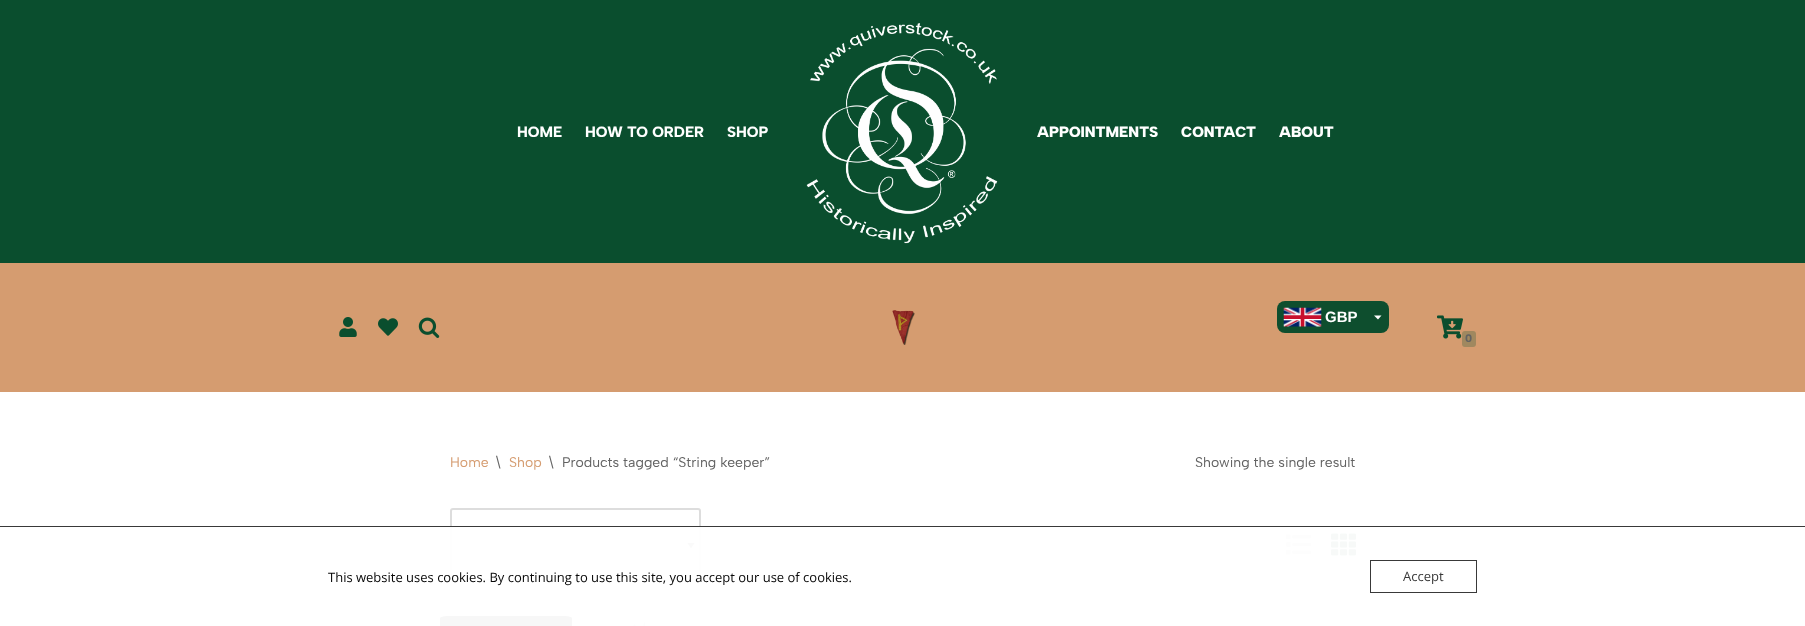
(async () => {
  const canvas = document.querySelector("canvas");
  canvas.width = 1805;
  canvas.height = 626;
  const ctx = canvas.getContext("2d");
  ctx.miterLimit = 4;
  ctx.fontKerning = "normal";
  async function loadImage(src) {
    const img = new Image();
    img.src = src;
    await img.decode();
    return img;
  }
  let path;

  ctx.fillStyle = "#ffffff";
  ctx.fillRect(0, 0, 1805, 626);
  ctx.fillStyle = "#0a4e2e";
  ctx.fillRect(0, 0, 1805, 263);
  ctx.drawImage(await loadImage("img/1.png"), 806, 23, 192, 221);
  ctx.fillStyle = "#d59c70";
  ctx.fillRect(0, 263, 1805, 129);
  ctx.drawImage(await loadImage("img/2.png"), 339, 317, 18, 20);
  ctx.drawImage(await loadImage("img/3.png"), 378, 318, 20, 18);
  ctx.drawImage(await loadImage("img/4.png"), 418, 317, 22, 21);
  ctx.drawImage(await loadImage("img/5.png"), 892, 310, 23, 35);
  ctx.fillStyle = "#0e4e2e";
  ctx.beginPath();
  ctx.roundRect(1277, 301, 112, 32, 8);
  ctx.fill();
  ctx.drawImage(await loadImage("img/6.png"), 1283, 307, 39, 20);
  ctx.fillStyle = "#ffffff";
  path = new Path2D("M1374 315.5H1381.5L1378 319.5Z");
  ctx.fill(path);
  ctx.drawImage(await loadImage("img/7.png"), 1437, 315, 26, 24);
  ctx.fillStyle = "#a0885f";
  ctx.beginPath();
  ctx.roundRect(1462, 331, 14, 16, 3);
  ctx.fill();
  ctx.fillStyle = "#626262";
  path = new Path2D("M694.5 543L691 548.5L687.5 543Z");
  ctx.fill(path);
  ctx.beginPath();
  ctx.roundRect(451, 509, 249, 71, 2);
  ctx.strokeStyle = "#dddddd";
  ctx.lineWidth = 2;
  ctx.stroke();
  ctx.drawImage(await loadImage("img/8.png"), 1286, 534, 25, 21);
  ctx.drawImage(await loadImage("img/9.png"), 1331, 533, 25, 23);
  ctx.fillStyle = "#000000";
  path = new Path2D("M448 616H564C568 616 572 617 572 618V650C572 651 568 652 564 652H448C444 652 440 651 440 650V618C440 617 444 616 448 616Z");
  ctx.fill(path);
  ctx.drawImage(await loadImage("img/10.png"), 633, 622, 13, 4);
  ctx.fillStyle = "rgba(255, 255, 255, 0.97)";
  ctx.fillRect(440, 527, 916, 99);
  ctx.fillStyle = "#393939";
  ctx.fillRect(0, 526, 1805, 1);
  ctx.strokeStyle = "#393939";
  ctx.lineWidth = 1;
  ctx.strokeRect(1370.5, 560.5, 106, 32);
  ctx.font = "800 15px Albert Sans";
  ctx.fillStyle = "#ffffff";
  for (const [text, x, y] of [
    ["HOME", 517, 137],
    ["HOW TO ORDER", 585, 137],
    ["SHOP", 727, 137],
  ]) {
    ctx.fillText(text, x, y);
  }
  ctx.font = "900 15px Albert Sans";
  for (const [text, x, y] of [
    ["APPOINTMENTS", 1037, 137],
    ["CONTACT", 1181, 137],
    ["ABOUT", 1279, 137],
  ]) {
    ctx.fillText(text, x, y);
  }
  ctx.font = "bold 15px Liberation Sans";
  ctx.fillText("GBP", 1325, 322);
  ctx.font = "800 11px Albert Sans";
  ctx.fillStyle = "#626262";
  ctx.fillText("0", 1465, 342);
  ctx.font = "14px Albert Sans";
  ctx.fillStyle = "#d59c70";
  ctx.fillText("Home", 450, 467);
  ctx.fillStyle = "#626262";
  ctx.fillText("\\", 496, 467);
  ctx.fillStyle = "#d59c70";
  ctx.fillText("Shop", 509, 467);
  ctx.fillStyle = "#626262";
  for (const [text, x, y] of [
    ["\\", 549, 467],
    ["Products tagged “String keeper”", 562, 467],
    ["Showing the single result", 1195, 467],
  ]) {
    ctx.fillText(text, x, y);
  }
  ctx.font = "13px Open Sans";
  ctx.fillStyle = "#080808";
  ctx.fillText("This website uses cookies. By continuing to use this site, you accept our use of cookies.", 328, 582);
  ctx.fillStyle = "#393939";
  ctx.fillText("Accept", 1403, 581);
})();
